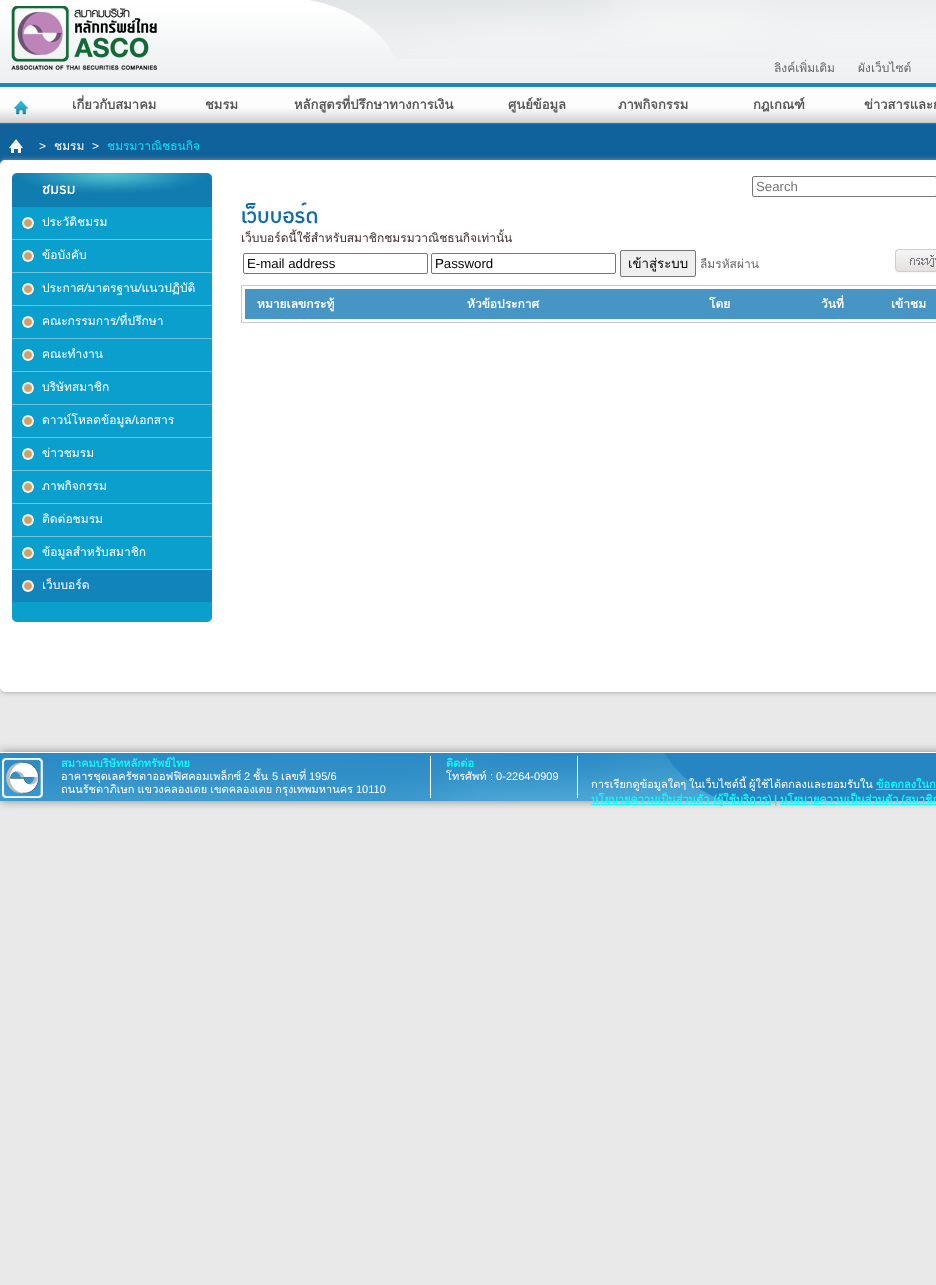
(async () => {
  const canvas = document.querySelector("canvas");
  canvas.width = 936;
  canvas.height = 1285;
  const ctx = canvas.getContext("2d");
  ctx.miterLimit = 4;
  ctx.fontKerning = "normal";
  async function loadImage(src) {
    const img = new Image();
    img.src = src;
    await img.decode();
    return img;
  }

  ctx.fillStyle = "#e9e9e9";
  ctx.fillRect(0, 0, 936, 1285);
  ctx.drawImage(await loadImage("img/1.png"), 0, 59, 936, 106);
  ctx.drawImage(await loadImage("img/2.png"), 0, 0, 936, 59);
  ctx.drawImage(await loadImage("img/3.png"), 11, 6, 146, 64);
  ctx.drawImage(await loadImage("img/4.png"), 13, 100, 16, 15);
  ctx.drawImage(await loadImage("img/5.png"), 9, 139, 14, 14);
  ctx.fillStyle = "#999999";
  ctx.filter = "blur(2.5px)";
  ctx.beginPath();
  ctx.roundRect(0, 160, 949, 532, 5);
  ctx.fill();
  ctx.filter = "none";
  ctx.fillStyle = "#ffffff";
  ctx.beginPath();
  ctx.roundRect(0, 160, 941, 532, 5);
  ctx.fill();
  ctx.drawImage(await loadImage("img/6.png"), 12, 173, 200, 34);
  ctx.drawImage(await loadImage("img/7.png"), 42, 184, 33, 11);
  ctx.fillStyle = "#0b9fce";
  ctx.fillRect(12, 207, 200, 362);
  ctx.drawImage(await loadImage("img/8.png"), 22, 217, 12, 12);
  ctx.fillStyle = "#6cc3de";
  ctx.fillRect(12, 239, 200, 1);
  ctx.drawImage(await loadImage("img/8.png"), 22, 250, 12, 12);
  ctx.fillRect(12, 272, 200, 1);
  ctx.drawImage(await loadImage("img/8.png"), 22, 283, 12, 12);
  ctx.fillRect(12, 305, 200, 1);
  ctx.drawImage(await loadImage("img/8.png"), 22, 316, 12, 12);
  ctx.fillRect(12, 338, 200, 1);
  ctx.drawImage(await loadImage("img/8.png"), 22, 349, 12, 12);
  ctx.fillRect(12, 371, 200, 1);
  ctx.drawImage(await loadImage("img/8.png"), 22, 382, 12, 12);
  ctx.fillRect(12, 404, 200, 1);
  ctx.drawImage(await loadImage("img/8.png"), 22, 415, 12, 12);
  ctx.fillRect(12, 437, 200, 1);
  ctx.drawImage(await loadImage("img/8.png"), 22, 448, 12, 12);
  ctx.fillRect(12, 470, 200, 1);
  ctx.drawImage(await loadImage("img/8.png"), 22, 481, 12, 12);
  ctx.fillRect(12, 503, 200, 1);
  ctx.drawImage(await loadImage("img/8.png"), 22, 514, 12, 12);
  ctx.fillRect(12, 536, 200, 1);
  ctx.drawImage(await loadImage("img/8.png"), 22, 547, 12, 12);
  ctx.fillRect(12, 569, 200, 1);
  ctx.fillStyle = "#1184bb";
  ctx.fillRect(12, 570, 200, 32);
  ctx.drawImage(await loadImage("img/9.png"), 22, 580, 12, 12);
  ctx.drawImage(await loadImage("img/10.png"), 12, 602, 200, 20);
  ctx.beginPath();
  ctx.roundRect(752.5, 176.5, 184, 20, 1.5);
  ctx.strokeStyle = "#767676";
  ctx.stroke();
  ctx.drawImage(await loadImage("img/11.png"), 242, 202, 76, 22);
  ctx.beginPath();
  ctx.roundRect(243.5, 253.5, 184, 20, 1.5);
  ctx.stroke();
  ctx.beginPath();
  ctx.roundRect(431.5, 253.5, 184, 20, 1.5);
  ctx.stroke();
  ctx.drawImage(await loadImage("img/12.png"), 895, 249, 41, 24);
  ctx.strokeStyle = "#cccccc";
  ctx.strokeRect(241.5, 285.5, 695, 37);
  ctx.fillStyle = "#4795c5";
  ctx.fillRect(245, 289, 691, 30);
  ctx.fillStyle = "#888888";
  ctx.filter = "blur(5px)";
  ctx.beginPath();
  ctx.rect(0, 752, 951, 49);
  ctx.fill();
  ctx.filter = "none";
  ctx.fillStyle = "#2686c2";
  ctx.fillRect(724, 753, 212, 48);
  ctx.drawImage(await loadImage("img/13.png"), 0, 753, 724, 48);
  ctx.fillStyle = "#ffffff";
  ctx.fillRect(0, 752, 936, 1);
  ctx.drawImage(await loadImage("img/14.png"), 2, 758, 41, 40);
  for (const [x, y, w, h, color] of [
    [430, 756, 1, 42, "#ffffff"],
    [577, 756, 1, 42, "#ffffff"],
    [876, 789, 60, 1, "#12f8fb"],
    [591, 804, 180, 1, "#12f8fb"],
    [780, 804, 156, 1, "#12f8fb"],
  ]) {
    ctx.fillStyle = color;
    ctx.fillRect(x, y, w, h);
  }
  ctx.font = "12px Loma";
  ctx.fillStyle = "#666666";
  ctx.fillText("ลิงค์เพิ่มเติม", 774, 72);
  ctx.fillText("ผังเว็บไซต์", 858, 72);
  ctx.font = "bold 13px Loma";
  ctx.fillStyle = "#585657";
  for (const [text, x, y] of [
    ["เกี่ยวกับสมาคม", 72, 109],
    ["ชมรม", 205, 109],
    ["หลักสูตรที่ปรึกษาทางการเงิน", 294, 109],
    ["ศูนย์ข้อมูล", 508, 109],
    ["ภาพกิจกรรม", 618, 109],
    ["กฎเกณฑ์", 753, 109],
    ["ข่าวสารและก", 864, 109],
  ]) {
    ctx.fillText(text, x, y);
  }
  ctx.font = "12px Liberation Sans";
  ctx.fillStyle = "#ffffff";
  ctx.fillText(">", 39, 150);
  ctx.font = "12px Loma";
  ctx.fillText("ชมรม", 54, 150);
  ctx.font = "12px Liberation Sans";
  ctx.fillText(">", 92, 150);
  ctx.font = "12px Loma";
  ctx.fillStyle = "#13e0f8";
  ctx.fillText("ชมรมวาณิชธนกิจ", 107, 150);
  ctx.fillStyle = "#ffffff";
  for (const [text, x, y] of [
    ["ประวัติชมรม", 42, 226],
    ["ข้อบังคับ", 42, 259],
    ["ประกาศ/มาตรฐาน/แนวปฏิบัติ", 42, 292],
    ["คณะกรรมการ/ที่ปรึกษา", 42, 325],
    ["คณะทำงาน", 42, 358],
    ["บริษัทสมาชิก", 42, 391],
    ["ดาวน์โหลดข้อมูล/เอกสาร", 42, 424],
    ["ข่าวชมรม", 42, 457],
    ["ภาพกิจกรรม", 42, 490],
    ["ติดต่อชมรม", 42, 523],
    ["ข้อมูลสำหรับสมาชิก", 42, 556],
    ["เว็บบอร์ด", 42, 589],
  ]) {
    ctx.fillText(text, x, y);
  }
  ctx.font = "13.25px Liberation Sans";
  ctx.fillStyle = "#757575";
  ctx.fillText("Search", 756, 191);
  ctx.font = "12px Loma";
  ctx.fillStyle = "#3d2a2a";
  ctx.fillText("เว็บบอร์ดนี้ใช้สำหรับสมาชิกชมรมวาณิชธนกิจเท่านั้น", 241, 242);
  ctx.font = "13.25px Liberation Sans";
  ctx.fillStyle = "#000000";
  ctx.fillText("E-mail address", 247, 268);
  ctx.fillText("Password", 435, 268);
  ctx.font = "12px Loma";
  ctx.fillStyle = "#666666";
  ctx.fillText("ลืมรหัสผ่าน", 700, 268);
  ctx.fillStyle = "#efefef";
  ctx.beginPath();
  ctx.roundRect(620.5, 250.5, 75, 26, 1.5);
  ctx.fill();
  ctx.strokeStyle = "#767676";
  ctx.stroke();
  ctx.font = "13.25px Loma";
  ctx.fillStyle = "#000000";
  ctx.fillText("เข้าสู่ระบบ", 628, 268);
  ctx.font = "bold 12px Loma";
  ctx.fillStyle = "#ffffff";
  for (const [text, x, y] of [
    ["หมายเลขกระทู้", 257, 308],
    ["หัวข้อประกาศ", 467, 308],
    ["โดย", 709, 308],
    ["วันที่", 821, 308],
    ["เข้าชม", 891, 308],
  ]) {
    ctx.fillText(text, x, y);
  }
  ctx.font = "bold 11px Loma";
  ctx.fillStyle = "#12f8fb";
  ctx.fillText("สมาคมบริษัทหลักทรัพย์ไทย", 61, 767);
  ctx.font = "11px Loma";
  ctx.fillStyle = "#ffffff";
  ctx.fillText("อาคารชุดเลครัชดาออฟฟิศคอมเพล็กซ์", 61, 780);
  ctx.font = "11px Liberation Sans";
  ctx.fillText("2", 244, 780);
  ctx.font = "11px Loma";
  ctx.fillText("ชั้น", 253, 780);
  ctx.font = "11px Liberation Sans";
  ctx.fillText("5", 272, 780);
  ctx.font = "11px Loma";
  ctx.fillText("เลขที่", 281, 780);
  ctx.font = "11px Liberation Sans";
  ctx.fillText("195/6", 309, 780);
  ctx.wordSpacing = "-0.5px";
  ctx.font = "11px Loma";
  ctx.fillText("ถนนรัชดาภิเษก แขวงคลองเตย เขตคลองเตย กรุงเทพมหานคร", 61, 793);
  ctx.wordSpacing = "0px";
  ctx.font = "11px Liberation Sans";
  ctx.fillText("10110", 356, 793);
  ctx.font = "bold 11px Loma";
  ctx.fillStyle = "#12f8fb";
  ctx.fillText("ติดต่อ", 446, 767);
  ctx.font = "11px Loma";
  ctx.fillStyle = "#ffffff";
  ctx.fillText("โทรศัพท์", 446, 780);
  ctx.font = "11px Liberation Sans";
  ctx.fillText(": 0-2264-0909", 490, 780);
  ctx.wordSpacing = "-1px";
  ctx.font = "11px Loma";
  ctx.fillText("การเรียกดูข้อมูลใดๆ ในเว็บไซต์นี้ ผู้ใช้ได้ตกลงและยอมรับใน", 591, 788);
  ctx.wordSpacing = "0px";
  ctx.font = "bold 11px Loma";
  ctx.fillStyle = "#12f8fb";
  ctx.fillText("ข้อตกลงในก", 876, 788);
  ctx.fillText("นโยบายความเป็นส่วนตัว (ผู้ใช้บริการ)", 591, 803);
  ctx.font = "bold 11px Liberation Sans";
  ctx.fillText("|", 774, 803);
  ctx.wordSpacing = "-1px";
  ctx.font = "bold 11px Loma";
  ctx.fillText("นโยบายความเป็นส่วนตัว (สมาชิก", 780, 803);
})();
